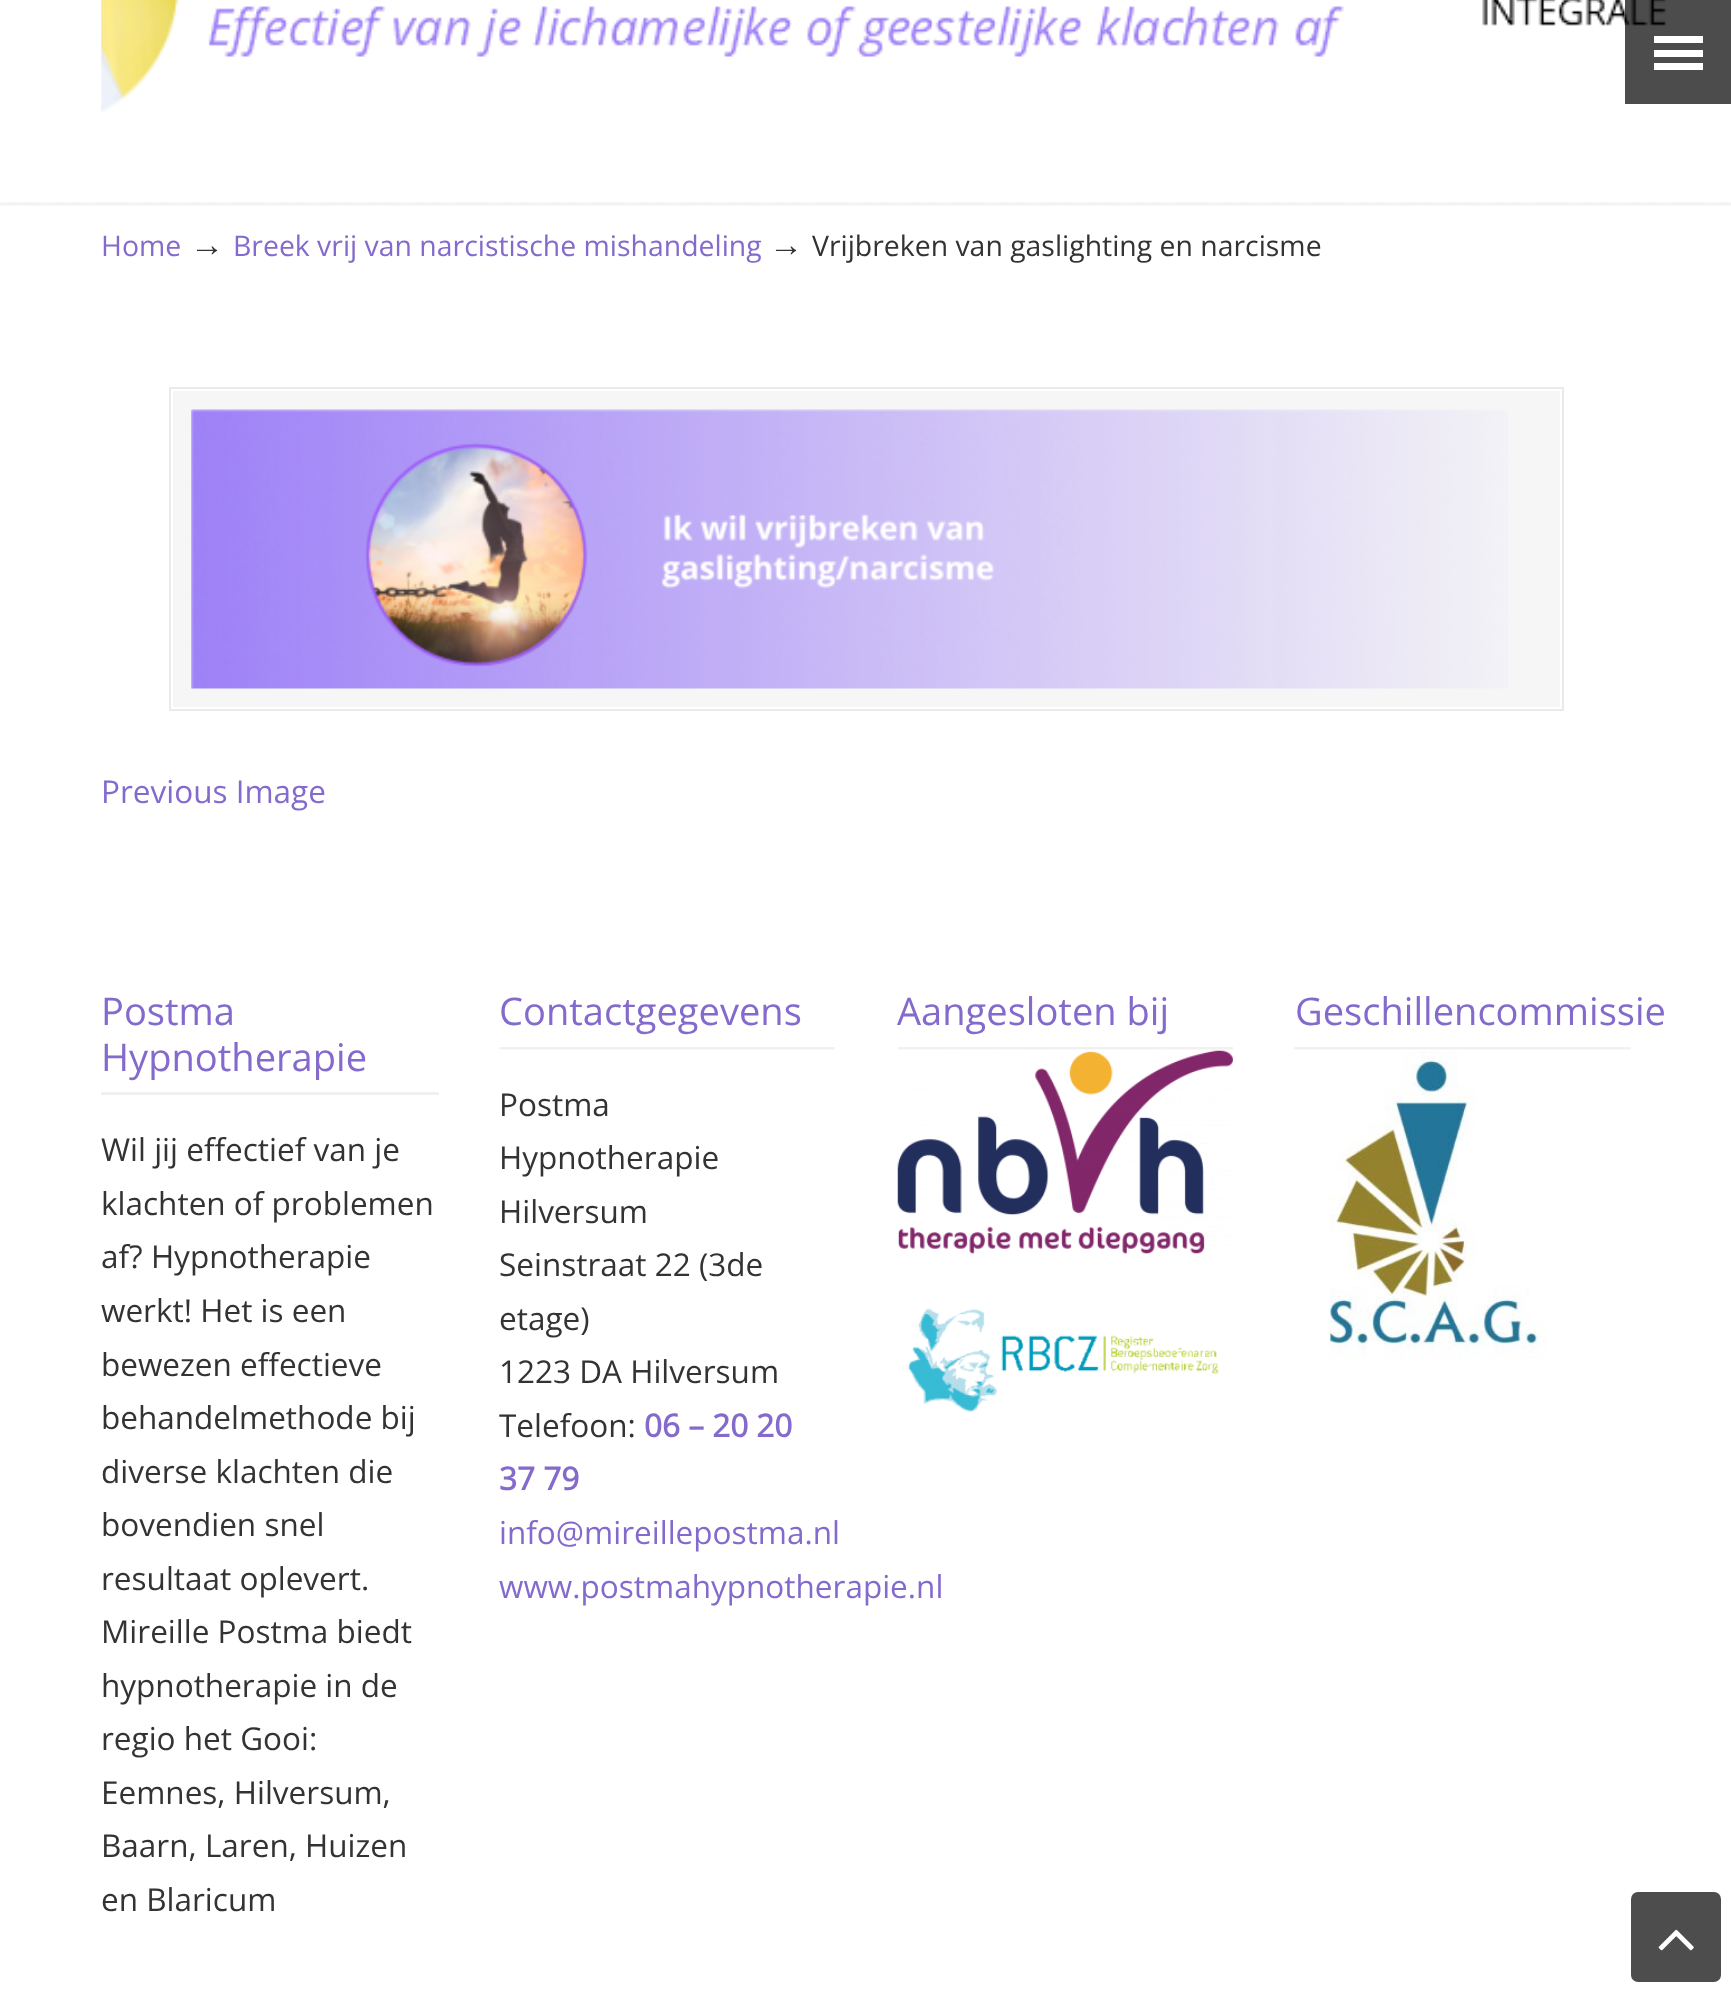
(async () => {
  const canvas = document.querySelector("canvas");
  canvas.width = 1731;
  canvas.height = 1993;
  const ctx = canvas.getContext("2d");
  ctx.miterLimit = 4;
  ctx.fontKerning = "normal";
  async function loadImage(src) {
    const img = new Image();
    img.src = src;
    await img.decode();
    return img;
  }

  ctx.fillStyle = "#ffffff";
  ctx.fillRect(0, 0, 1731, 1993);
  ctx.drawImage(await loadImage("img/1.png"), 101, 0, 1565, 113);
  for (const [x, y, w, h, color] of [
    [1625, 0, 106, 104, "rgba(0, 0, 0, 0.7)"],
    [1654, 36, 49, 7, "#ffffff"],
    [1654, 50, 49, 7, "#ffffff"],
    [1654, 63, 49, 7, "#ffffff"],
  ]) {
    ctx.fillStyle = color;
    ctx.fillRect(x, y, w, h);
  }
  ctx.drawImage(await loadImage("img/2.png"), 0, 202, 1731, 4);
  ctx.fillStyle = "#f6f6f6";
  ctx.fillRect(173, 391, 1387, 316);
  ctx.strokeStyle = "#eaeaea";
  ctx.lineWidth = 2;
  ctx.strokeRect(170, 388, 1393, 322);
  ctx.drawImage(await loadImage("img/3.png"), 191, 409, 1317, 280);
  ctx.fillStyle = "#f0f0f0";
  ctx.fillRect(101, 1092, 338, 3);
  ctx.drawImage(await loadImage("img/4.png"), 499, 1047, 336, 3);
  ctx.drawImage(await loadImage("img/5.png"), 898, 1047, 335, 3);
  ctx.drawImage(await loadImage("img/6.png"), 897, 1050, 336, 204);
  ctx.drawImage(await loadImage("img/7.png"), 908, 1308, 311, 104);
  ctx.drawImage(await loadImage("img/8.png"), 1294, 1047, 337, 3);
  ctx.drawImage(await loadImage("img/9.png"), 1329, 1051, 218, 308);
  ctx.fillStyle = "#4d4d4d";
  ctx.beginPath();
  ctx.roundRect(1631, 1892, 90, 90, 7);
  ctx.fill();
  ctx.drawImage(await loadImage("img/10.png"), 1658, 1929, 36, 22);
  ctx.font = "28.4px Open Sans";
  ctx.fillStyle = "#836acc";
  ctx.fillText("Home", 101, 256);
  ctx.font = "34px Liberation Serif";
  ctx.fillStyle = "#333333";
  ctx.fillText("→", 190, 256);
  ctx.font = "28.4px Open Sans";
  ctx.fillStyle = "#836acc";
  ctx.fillText("Breek vrij van narcistische mishandeling", 233, 256);
  ctx.font = "34px Liberation Serif";
  ctx.fillStyle = "#333333";
  ctx.fillText("→", 769, 256);
  ctx.font = "28.4px Open Sans";
  ctx.fillText("Vrijbreken van gaslighting en narcisme", 812, 256);
  ctx.font = "31.5px Open Sans";
  ctx.fillStyle = "#836acc";
  ctx.fillText("Previous Image", 101, 803);
  ctx.font = "38.1px Open Sans";
  ctx.fillText("Postma", 101, 1025);
  ctx.fillText("Hypnotherapie", 101, 1071);
  ctx.font = "31.5px Open Sans";
  ctx.fillStyle = "#333333";
  for (const [text, x, y] of [
    ["Wil jij effectief van je", 101, 1161],
    ["klachten of problemen", 101, 1215],
    ["af? Hypnotherapie", 101, 1268],
    ["werkt! Het is een", 101, 1322],
    ["bewezen effectieve", 101, 1376],
    ["behandelmethode bij", 101, 1429],
    ["diverse klachten die", 101, 1483],
    ["bovendien snel", 101, 1536],
    ["resultaat oplevert.", 101, 1590],
    ["Mireille Postma biedt", 101, 1643],
    ["hypnotherapie in de", 101, 1697],
    ["regio het Gooi:", 101, 1750],
    ["Eemnes, Hilversum,", 101, 1804],
    ["Baarn, Laren, Huizen", 101, 1857],
    ["en Blaricum", 101, 1911],
  ]) {
    ctx.fillText(text, x, y);
  }
  ctx.font = "38.1px Open Sans";
  ctx.fillStyle = "#836acc";
  ctx.fillText("Contactgegevens", 499, 1025);
  ctx.font = "31.5px Open Sans";
  ctx.fillStyle = "#333333";
  for (const [text, x, y] of [
    ["Postma", 499, 1116],
    ["Hypnotherapie", 499, 1169],
    ["Hilversum", 499, 1223],
    ["Seinstraat 22 (3de", 499, 1276],
    ["etage)", 499, 1330],
    ["1223 DA Hilversum", 499, 1383],
    ["Telefoon:", 499, 1437],
  ]) {
    ctx.fillText(text, x, y);
  }
  ctx.font = "bold 31.5px Open Sans";
  ctx.fillStyle = "#836acc";
  ctx.fillText("06 – 20 20", 644, 1437);
  ctx.fillText("37 79", 499, 1490);
  ctx.font = "31.5px Open Sans";
  ctx.fillText("info@mireillepostma.nl", 499, 1544);
  ctx.fillText("www.postmahypnotherapie.nl", 499, 1598);
  ctx.font = "38.1px Open Sans";
  ctx.fillText("Aangesloten bij", 897, 1025);
  ctx.fillText("Geschillencommissie", 1295, 1025);
})();
